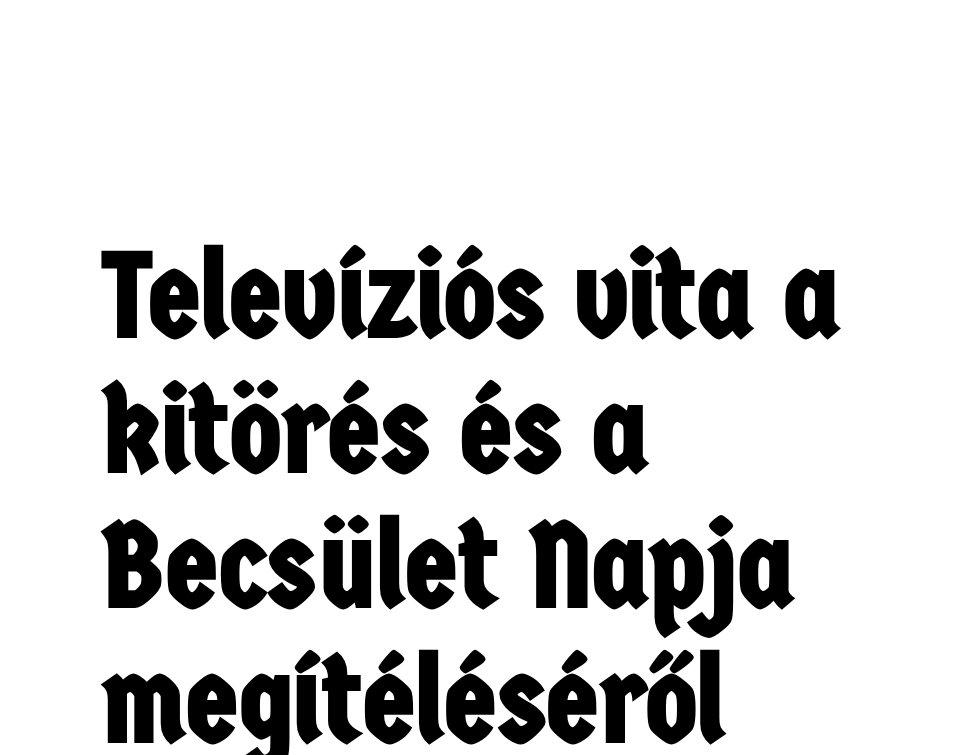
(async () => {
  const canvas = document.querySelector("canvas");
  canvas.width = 958;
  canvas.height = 755;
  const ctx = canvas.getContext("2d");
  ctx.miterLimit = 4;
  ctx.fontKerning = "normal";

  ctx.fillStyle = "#ffffff";
  ctx.fillRect(0, 0, 958, 755);
  ctx.font = "bold 120px Germania One";
  ctx.fillStyle = "#000000";
  for (const [text, x, y] of [
    ["Televíziós vita a", 100, 338],
    ["kitörés és a", 100, 473],
    ["Becsület Napja", 100, 608],
    ["megítéléséről", 100, 743],
  ]) {
    ctx.fillText(text, x, y);
  }
})();
